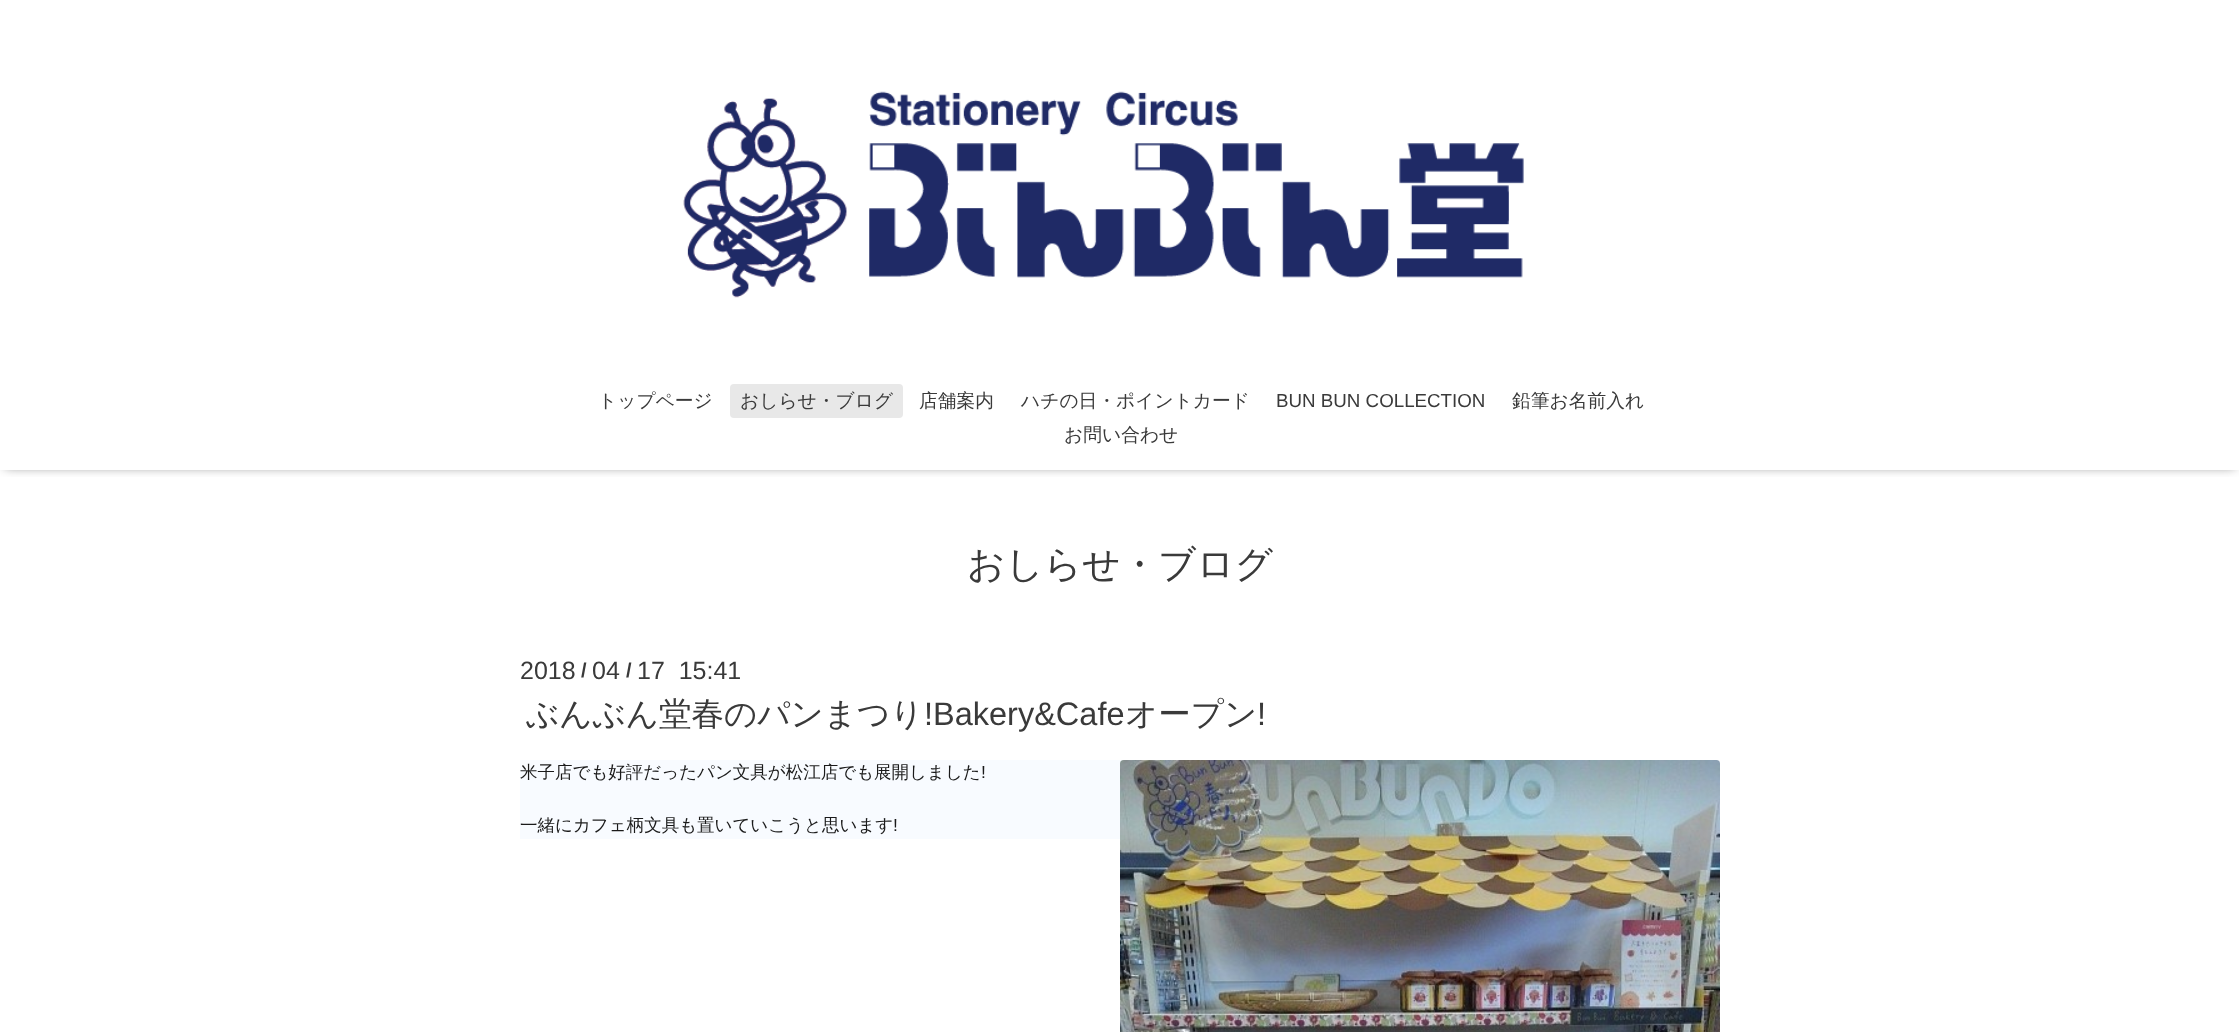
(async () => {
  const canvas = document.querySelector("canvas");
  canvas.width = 2239;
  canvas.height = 1032;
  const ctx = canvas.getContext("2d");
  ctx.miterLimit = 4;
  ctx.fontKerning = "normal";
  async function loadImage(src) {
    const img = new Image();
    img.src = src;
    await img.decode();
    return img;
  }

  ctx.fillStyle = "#ffffff";
  ctx.fillRect(0, 0, 2239, 1032);
  ctx.save();
  ctx.beginPath();
  ctx.rect(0, 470, 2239, 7);
  ctx.clip();
  ctx.fillStyle = "rgba(0, 0, 0, 0.6)";
  ctx.filter = "blur(6px)";
  ctx.beginPath();
  ctx.rect(5, 6, 2230, 460);
  ctx.fill();
  ctx.filter = "none";
  ctx.restore();
  ctx.drawImage(await loadImage("img/1.png"), 683, 91, 841, 207);
  ctx.fillStyle = "#e8e8e8";
  ctx.beginPath();
  ctx.roundRect(730, 384, 173, 34, 4);
  ctx.fill();
  ctx.fillStyle = "#f8fbff";
  ctx.fillRect(520, 760, 1200, 79);
  ctx.drawImage(await loadImage("img/2.png"), 1120, 760, 600, 272);
  ctx.font = "500 18.75px WenQuanYi Zen Hei";
  ctx.fillStyle = "#3a3a3a";
  for (const [text, x, y] of [
    ["トップページ", 598, 407],
    ["おしらせ・ブログ", 740, 407],
    ["店舗案内", 919, 407],
    ["ハチの日・ポイントカード", 1021, 407],
  ]) {
    ctx.fillText(text, x, y);
  }
  ctx.font = "18.75px Liberation Sans";
  ctx.fillText("BUN BUN COLLECTION", 1276, 407);
  ctx.font = "500 18.75px WenQuanYi Zen Hei";
  ctx.fillText("鉛筆お名前入れ", 1512, 407);
  ctx.fillText("お問い合わせ", 1064, 441);
  ctx.font = "500 37.5px WenQuanYi Zen Hei";
  ctx.fillText("おしらせ・ブログ", 967, 577);
  ctx.font = "25px Liberation Sans";
  ctx.fillText("2018", 520, 679);
  ctx.font = "bold 20px Liberation Sans";
  ctx.fillText("/", 581, 677);
  ctx.font = "25px Liberation Sans";
  ctx.fillText("04", 592, 679);
  ctx.font = "bold 20px Liberation Sans";
  ctx.fillText("/", 626, 677);
  ctx.font = "25px Liberation Sans";
  ctx.fillText("17  15:41", 637, 679);
  ctx.font = "500 32.5px WenQuanYi Zen Hei";
  ctx.fillText("ぶんぶん堂春のパンまつり", 526, 725);
  ctx.font = "32.5px Liberation Sans";
  ctx.fillText("!Bakery&Cafe", 924, 725);
  ctx.font = "500 32.5px WenQuanYi Zen Hei";
  ctx.fillText("オープン", 1125, 725);
  ctx.font = "32.5px Liberation Sans";
  ctx.fillText("!", 1257, 725);
  ctx.font = "500 17.5px WenQuanYi Zen Hei";
  ctx.fillStyle = "#1a1a1a";
  ctx.fillText("米子店でも好評だったパン文具が松江店でも展開しました", 520, 778);
  ctx.font = "17.5px Liberation Sans";
  ctx.fillText("!", 981, 778);
  ctx.font = "500 17.5px WenQuanYi Zen Hei";
  ctx.fillText("一緒にカフェ柄文具も置いていこうと思います", 520, 831);
  ctx.font = "17.5px Liberation Sans";
  ctx.fillText("!", 893, 831);
})();
